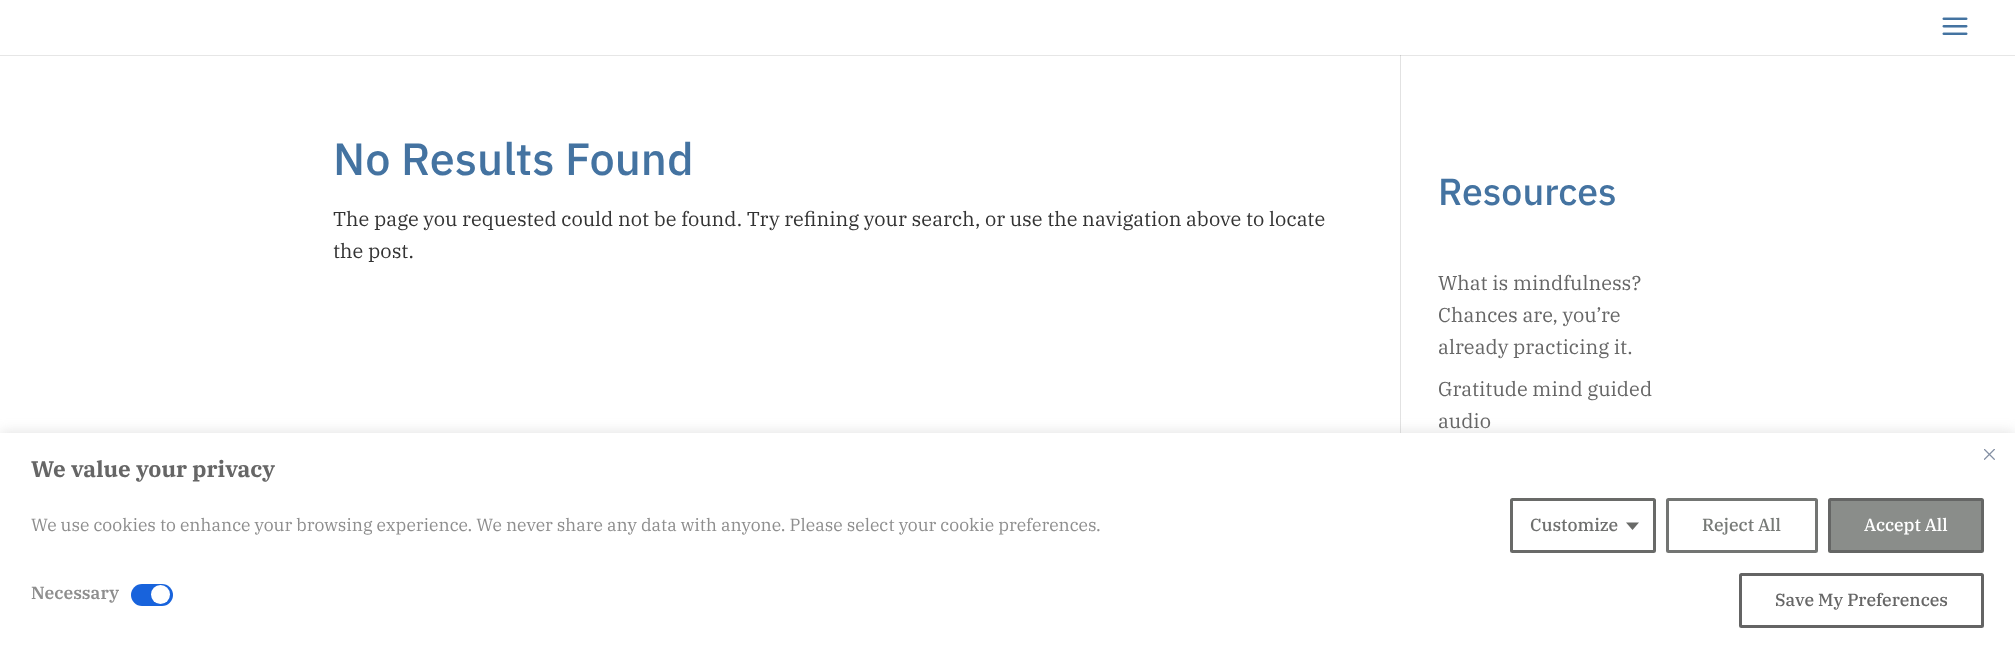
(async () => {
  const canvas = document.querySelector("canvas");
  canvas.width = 2015;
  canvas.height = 648;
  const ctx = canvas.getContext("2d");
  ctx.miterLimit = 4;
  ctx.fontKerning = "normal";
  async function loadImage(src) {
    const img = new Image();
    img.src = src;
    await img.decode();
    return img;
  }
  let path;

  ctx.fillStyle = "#ffffff";
  ctx.fillRect(0, 0, 2015, 648);
  ctx.fillStyle = "#e6e6e6";
  ctx.fillRect(0, 55, 2015, 1);
  ctx.drawImage(await loadImage("img/1.png"), 1942, 17, 26, 18);
  ctx.fillStyle = "#e2e2e2";
  ctx.fillRect(1400, 55, 1, 378);
  ctx.fillStyle = "#cbcbcb";
  ctx.fillRect(1400, 55, 1, 1);
  ctx.fillStyle = "rgba(172, 171, 171, 0.3)";
  ctx.filter = "blur(6px)";
  ctx.beginPath();
  ctx.rect(0, 431, 2015, 217);
  ctx.fill();
  ctx.filter = "none";
  ctx.fillStyle = "#ffffff";
  ctx.fillRect(0, 433, 2015, 215);
  ctx.drawImage(await loadImage("img/2.png"), 1984, 449, 11, 11);
  ctx.beginPath();
  ctx.roundRect(1511.5, 499.5, 143, 52, 1);
  ctx.strokeStyle = "#696a68";
  ctx.lineWidth = 3;
  ctx.stroke();
  ctx.fillStyle = "#696a68";
  path = new Path2D("M1626 522.5H1639L1632.5 530Z");
  ctx.fill(path);
  ctx.beginPath();
  ctx.roundRect(1667.5, 499.5, 149, 52, 1);
  ctx.strokeStyle = "#737573";
  ctx.stroke();
  ctx.fillStyle = "#8a8d8a";
  ctx.beginPath();
  ctx.roundRect(1829.5, 499.5, 153, 52, 1);
  ctx.fill();
  ctx.strokeStyle = "#656665";
  ctx.stroke();
  ctx.fillStyle = "#1863dc";
  ctx.beginPath();
  ctx.roundRect(131, 584, 42, 22, 11);
  ctx.fill();
  ctx.fillStyle = "#ffffff";
  ctx.beginPath();
  ctx.arc(160.5, 594.5, 9.5, 0, Math.PI * 2);
  ctx.fill();
  ctx.beginPath();
  ctx.roundRect(1740.5, 574.5, 242, 52, 1);
  ctx.strokeStyle = "#646464";
  ctx.stroke();
  ctx.font = "500 45px IBM Plex Sans";
  ctx.fillStyle = "#4473a1";
  ctx.fillText("No Results Found", 333, 175);
  ctx.font = "20px IBM Plex Serif";
  ctx.fillStyle = "#333333";
  ctx.fillText("The page you requested could not be found. Try refining your search, or use the navigation above to locate", 333, 226);
  ctx.fillText("the post.", 333, 258);
  ctx.font = "500 37.5px IBM Plex Sans";
  ctx.fillStyle = "#4473a1";
  ctx.fillText("Resources", 1438, 205);
  ctx.font = "20px IBM Plex Serif";
  ctx.fillStyle = "#666666";
  for (const [text, x, y] of [
    ["What is mindfulness?", 1438, 290],
    ["Chances are, you’re", 1438, 322],
    ["already practicing it.", 1438, 354],
    ["Gratitude mind guided", 1438, 396],
    ["audio", 1438, 428],
  ]) {
    ctx.fillText(text, x, y);
  }
  ctx.font = "bold 22.5px IBM Plex Serif";
  ctx.fillText("We value your privacy", 31, 477);
  ctx.font = "17.5px IBM Plex Serif";
  ctx.fillStyle = "#8e8e8e";
  ctx.fillText("We use cookies to enhance your browsing experience. We never share any data with anyone. Please select your cookie preferences.", 31, 531);
  ctx.font = "500 17.5px IBM Plex Serif";
  ctx.fillStyle = "#6f706f";
  ctx.fillText("Customize", 1530, 531);
  ctx.fillStyle = "#777a77";
  ctx.fillText("Reject All", 1702, 531);
  ctx.fillStyle = "#ffffff";
  ctx.fillText("Accept All", 1864, 531);
  ctx.font = "600 17.5px IBM Plex Serif";
  ctx.fillStyle = "#8e8e8e";
  ctx.fillText("Necessary", 31, 599);
  ctx.font = "500 17.5px IBM Plex Serif";
  ctx.fillStyle = "#666666";
  ctx.fillText("Save My Preferences", 1775, 606);
})();
